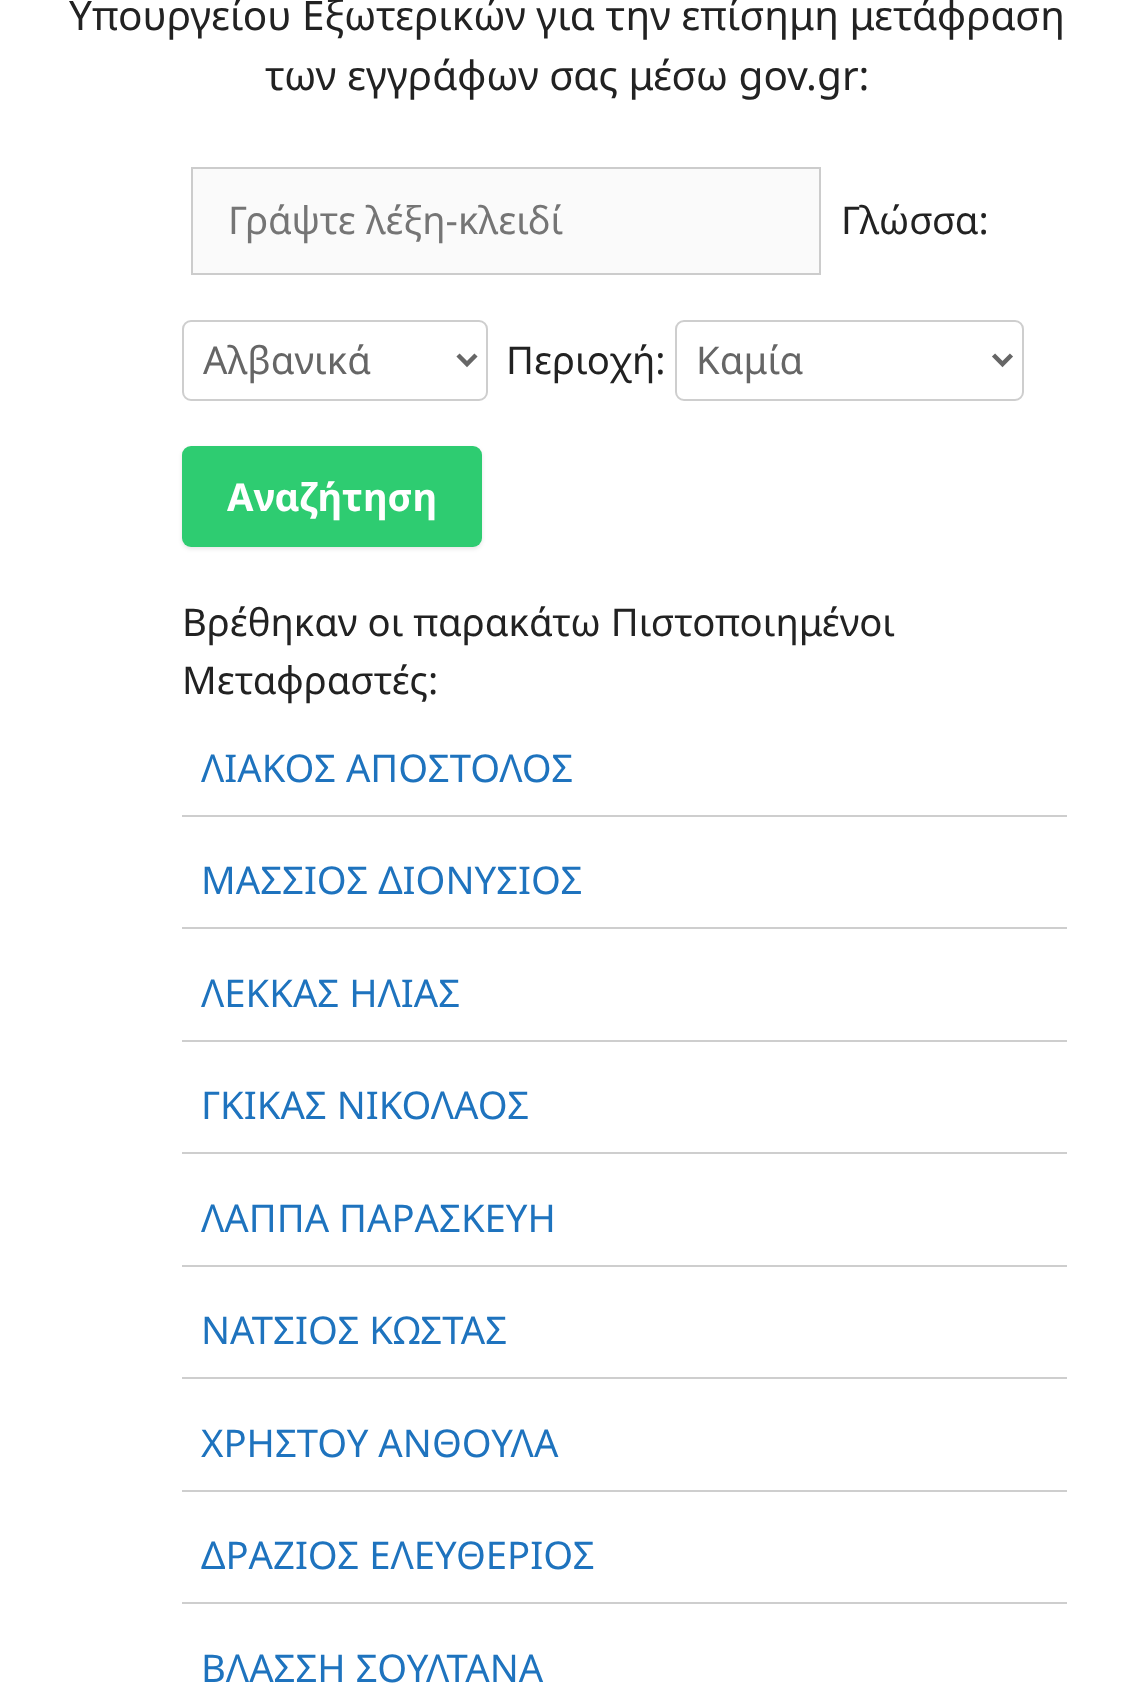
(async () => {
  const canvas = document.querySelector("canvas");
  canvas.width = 1134;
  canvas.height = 1701;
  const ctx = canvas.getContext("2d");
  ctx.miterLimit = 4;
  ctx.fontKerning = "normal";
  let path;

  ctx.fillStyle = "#ffffff";
  ctx.fillRect(0, 0, 1134, 1701);
  ctx.fillStyle = "#fafafa";
  ctx.beginPath();
  ctx.rect(192, 168, 628, 106);
  ctx.fill();
  ctx.strokeStyle = "#cccccc";
  ctx.lineWidth = 2;
  ctx.stroke();
  ctx.beginPath();
  ctx.roundRect(183, 321, 304, 79, 8);
  ctx.strokeStyle = "#cecece";
  ctx.stroke();
  path = new Path2D("M458 355L467 364L476 355");
  ctx.strokeStyle = "#666666";
  ctx.lineWidth = 4.5;
  ctx.stroke(path);
  ctx.beginPath();
  ctx.roundRect(676, 321, 347, 79, 8);
  ctx.strokeStyle = "#cecece";
  ctx.lineWidth = 2;
  ctx.stroke();
  path = new Path2D("M993.5 355L1002.5 364L1011.5 355");
  ctx.strokeStyle = "#666666";
  ctx.lineWidth = 4.5;
  ctx.stroke(path);
  ctx.fillStyle = "rgba(0, 0, 0, 0.1)";
  ctx.filter = "blur(2px)";
  ctx.beginPath();
  ctx.roundRect(182, 448, 300, 101, 9);
  ctx.fill();
  ctx.filter = "none";
  ctx.fillStyle = "#2ecc71";
  ctx.beginPath();
  ctx.roundRect(182, 446, 300, 101, 9);
  ctx.fill();
  for (const [x, y, w, h, color] of [
    [182, 815, 885, 2, "#cecece"],
    [182, 927, 885, 2, "#cecece"],
    [182, 1040, 885, 2, "#cecece"],
    [182, 1152, 885, 2, "#cecece"],
    [182, 1265, 885, 2, "#cecece"],
    [182, 1377, 885, 2, "#cecece"],
    [182, 1490, 885, 2, "#cecece"],
    [182, 1602, 885, 2, "#cecece"],
  ]) {
    ctx.fillStyle = color;
    ctx.fillRect(x, y, w, h);
  }
  ctx.font = "40.5px Noto Sans";
  ctx.fillStyle = "#222222";
  ctx.fillText("Υπουργείου Εξωτερικών για την επίσημη μετάφραση", 69, 30);
  ctx.fillText("των εγγράφων σας μέσω gov.gr:", 265, 90);
  ctx.font = "38.25px Noto Sans";
  ctx.fillStyle = "#757575";
  ctx.fillText("Γράψτε λέξη-κλειδί", 228, 234);
  ctx.fillStyle = "#222222";
  ctx.fillText("Γλώσσα:", 841, 234);
  ctx.fillStyle = "#666666";
  ctx.fillText("Αλβανικά", 203, 374);
  ctx.fillStyle = "#222222";
  ctx.fillText("Περιοχή:", 506, 374);
  ctx.fillStyle = "#666666";
  ctx.fillText("Καμία", 696, 374);
  ctx.font = "bold 38.25px Noto Sans";
  ctx.fillStyle = "#ffffff";
  ctx.fillText("Αναζήτηση", 227, 511);
  ctx.font = "38.25px Noto Sans";
  ctx.fillStyle = "#222222";
  ctx.fillText("Βρέθηκαν οι παρακάτω Πιστοποιημένοι", 182, 636);
  ctx.fillText("Μεταφραστές:", 182, 694);
  ctx.fillStyle = "#1e73be";
  for (const [text, x, y] of [
    ["ΛΙΑΚΟΣ ΑΠΟΣΤΟΛΟΣ", 201, 782],
    ["ΜΑΣΣΙΟΣ ΔΙΟΝΥΣΙΟΣ", 201, 894],
    ["ΛΕΚΚΑΣ ΗΛΙΑΣ", 201, 1007],
    ["ΓΚΙΚΑΣ ΝΙΚΟΛΑΟΣ", 201, 1119],
    ["ΛΑΠΠΑ ΠΑΡΑΣΚΕΥΗ", 201, 1232],
    ["ΝΑΤΣΙΟΣ ΚΩΣΤΑΣ", 201, 1344],
    ["ΧΡΗΣΤΟΥ ΑΝΘΟΥΛΑ", 201, 1457],
    ["ΔΡΑΖΙΟΣ ΕΛΕΥΘΕΡΙΟΣ", 201, 1569],
    ["ΒΛΑΣΣΗ ΣΟΥΛΤΑΝΑ", 201, 1682],
  ]) {
    ctx.fillText(text, x, y);
  }
})();
